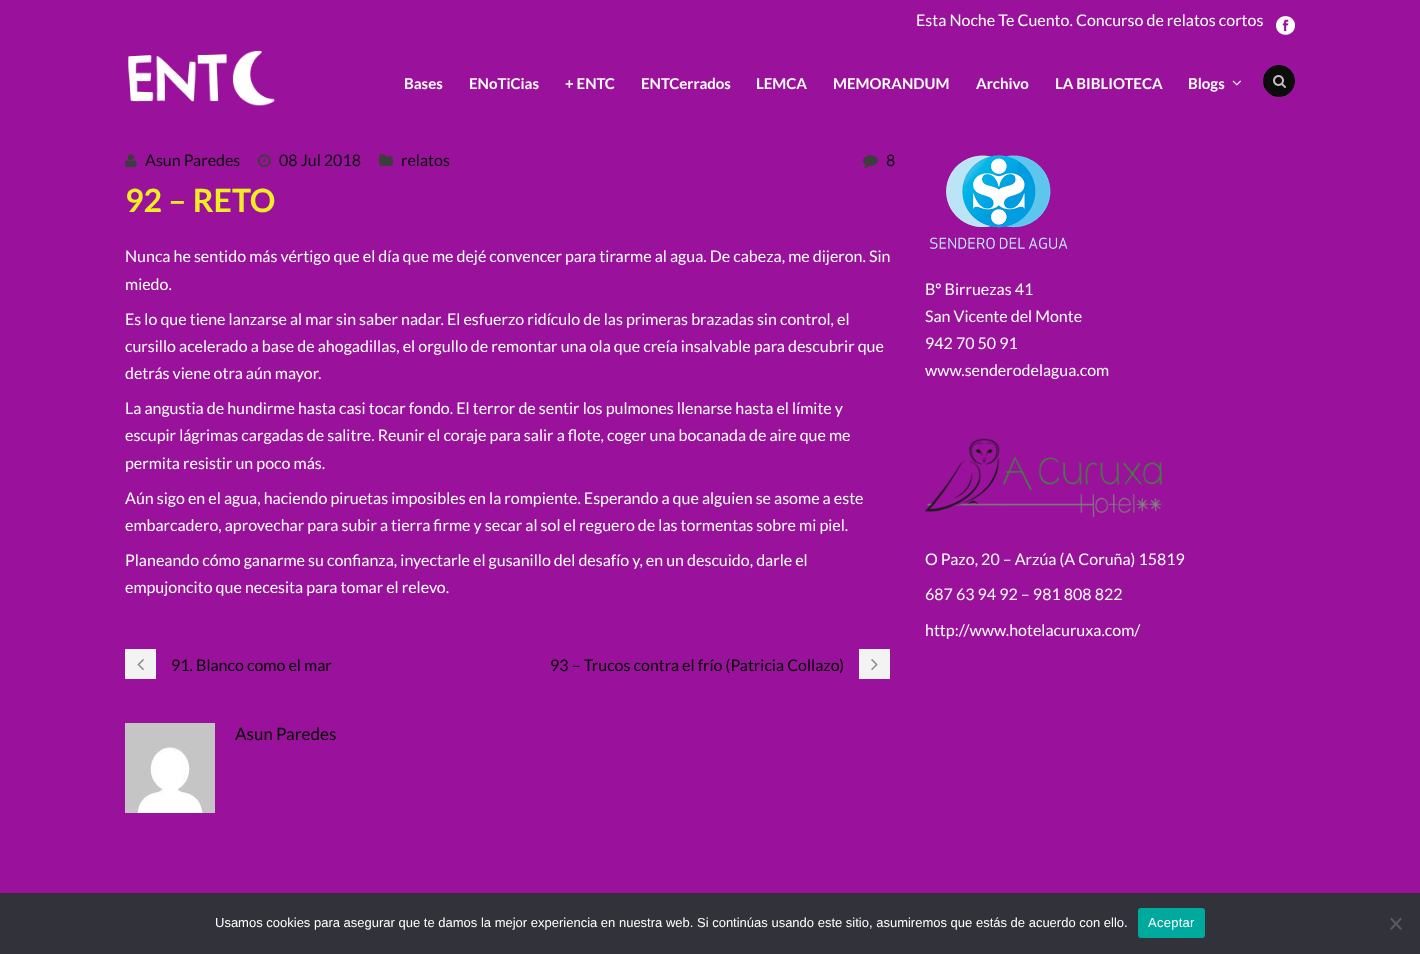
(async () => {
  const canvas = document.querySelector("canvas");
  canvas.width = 1420;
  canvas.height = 954;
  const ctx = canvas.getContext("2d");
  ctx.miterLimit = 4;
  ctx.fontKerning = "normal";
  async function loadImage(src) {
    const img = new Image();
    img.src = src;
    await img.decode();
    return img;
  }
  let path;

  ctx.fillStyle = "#9a119c";
  ctx.fillRect(0, 0, 1420, 954);
  ctx.drawImage(await loadImage("img/1.png"), 1276, 16, 19, 19);
  ctx.drawImage(await loadImage("img/2.png"), 128, 50, 147, 56);
  ctx.drawImage(await loadImage("img/3.png"), 1232, 80, 9, 6);
  ctx.fillStyle = "#0c0c0c";
  ctx.beginPath();
  ctx.arc(1279, 81, 15.5, 0, Math.PI * 2);
  ctx.fill();
  ctx.strokeStyle = "#000000";
  ctx.stroke();
  ctx.drawImage(await loadImage("img/4.png"), 1273, 75, 13, 13);
  ctx.drawImage(await loadImage("img/5.png"), 125, 154, 12, 14);
  ctx.drawImage(await loadImage("img/6.png"), 258, 154, 13, 13);
  ctx.drawImage(await loadImage("img/7.png"), 379, 154, 14, 12);
  ctx.drawImage(await loadImage("img/8.png"), 863, 155, 15, 14);
  ctx.fillStyle = "#f3f3f3";
  ctx.fillRect(125, 649, 31, 30);
  ctx.drawImage(await loadImage("img/9.png"), 137, 659, 7, 11);
  ctx.fillRect(859, 649, 31, 30);
  ctx.drawImage(await loadImage("img/10.png"), 871, 659, 7, 11);
  ctx.drawImage(await loadImage("img/11.png"), 125, 723, 90, 90);
  ctx.drawImage(await loadImage("img/12.png"), 930, 155, 138, 94);
  ctx.drawImage(await loadImage("img/13.png"), 925, 438, 237, 79);
  ctx.fillStyle = "#32323a";
  ctx.fillRect(0, 893, 1420, 61);
  ctx.fillStyle = "#00a99d";
  ctx.beginPath();
  ctx.roundRect(1138, 908, 67, 30, 3);
  ctx.fill();
  ctx.fillStyle = "#59595d";
  path = new Path2D("M1400.5 917.5L1402 919L1391.5 930L1390 928.5Z");
  ctx.fill(path);
  path = new Path2D("M1390 919L1391.5 917.5L1402 928.5L1400.5 930Z");
  ctx.fill(path);
  ctx.font = "16px Lato";
  ctx.fillStyle = "#ffffff";
  ctx.fillText("Esta Noche Te Cuento. Concurso de relatos cortos", 916, 26);
  ctx.font = "bold 15px Lato";
  for (const [text, x, y] of [
    ["Bases", 404, 89],
    ["ENoTiCias", 469, 89],
    ["+ ENTC", 565, 89],
    ["ENTCerrados", 641, 89],
    ["LEMCA", 756, 89],
    ["MEMORANDUM", 833, 89],
    ["Archivo", 976, 89],
    ["LA BIBLIOTECA", 1055, 89],
    ["Blogs", 1188, 89],
  ]) {
    ctx.fillText(text, x, y);
  }
  ctx.font = "16px Lato";
  ctx.fillStyle = "#0c0c0c";
  for (const [text, x, y] of [
    ["Asun Paredes", 145, 166],
    ["08 Jul 2018", 279, 166],
    ["relatos", 401, 166],
    ["8", 886, 166],
  ]) {
    ctx.fillText(text, x, y);
  }
  ctx.font = "bold 32px Lato";
  ctx.fillStyle = "#eeee22";
  ctx.fillText("92 – RETO", 125, 212);
  ctx.font = "16px Lato";
  ctx.fillStyle = "#ffffff";
  for (const [text, x, y] of [
    ["Nunca he sentido más vértigo que el día que me dejé convencer para tirarme al agua. De cabeza, me dijeron. Sin", 125, 262],
    ["miedo.", 125, 290],
    ["Es lo que tiene lanzarse al mar sin saber nadar. El esfuerzo ridículo de las primeras brazadas sin control, el", 125, 325],
    ["cursillo acelerado a base de ahogadillas, el orgullo de remontar una ola que creía insalvable para descubrir que", 125, 352],
    ["detrás viene otra aún mayor.", 125, 379],
    ["La angustia de hundirme hasta casi tocar fondo. El terror de sentir los pulmones llenarse hasta el límite y", 125, 414],
    ["escupir lágrimas cargadas de salitre. Reunir el coraje para salir a flote, coger una bocanada de aire que me", 125, 441],
    ["permita resistir un poco más.", 125, 469],
    ["Aún sigo en el agua, haciendo piruetas imposibles en la rompiente. Esperando a que alguien se asome a este", 125, 504],
    ["embarcadero, aprovechar para subir a tierra firme y secar al sol el reguero de las tormentas sobre mi piel.", 125, 531],
    ["Planeando cómo ganarme su confianza, inyectarle el gusanillo del desafío y, en un descuido, darle el", 125, 566],
    ["empujoncito que necesita para tomar el relevo.", 125, 593],
  ]) {
    ctx.fillText(text, x, y);
  }
  ctx.fillStyle = "#000000";
  ctx.fillText("91. Blanco como el mar", 171, 671);
  ctx.fillText("93 – Trucos contra el frío (Patricia Collazo)", 550, 671);
  ctx.font = "17px Lato";
  ctx.fillText("Asun Paredes", 235, 740);
  ctx.font = "16px Lato";
  ctx.fillStyle = "#ffffff";
  for (const [text, x, y] of [
    ["Bº Birruezas 41", 925, 295],
    ["San Vicente del Monte", 925, 322],
    ["942 70 50 91", 925, 349],
    ["www.senderodelagua.com", 925, 376],
    ["O Pazo, 20 – Arzúa (A Coruña) 15819", 925, 565],
    ["687 63 94 92 – 981 808 822", 925, 600],
    ["http://www.hotelacuruxa.com/", 925, 636],
  ]) {
    ctx.fillText(text, x, y);
  }
  ctx.font = "13px Liberation Sans";
  ctx.fillText("Usamos cookies para asegurar que te damos la mejor experiencia en nuestra web. Si continúas usando este sitio, asumiremos que estás de acuerdo con ello.", 215, 927);
  ctx.letterSpacing = "0.25px";
  ctx.fillText("Aceptar", 1148, 927);
})();
